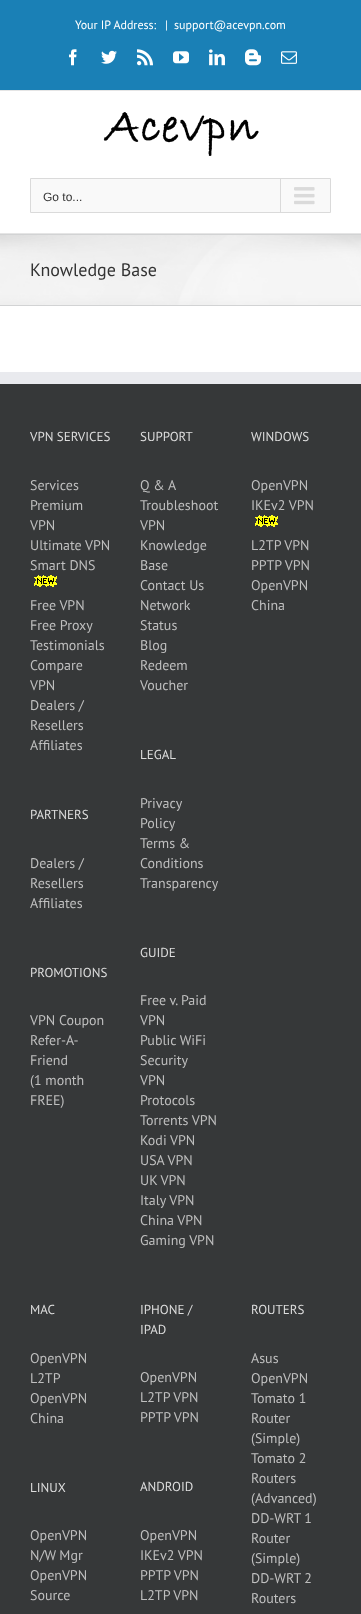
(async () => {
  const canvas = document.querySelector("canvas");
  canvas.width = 361;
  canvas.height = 1614;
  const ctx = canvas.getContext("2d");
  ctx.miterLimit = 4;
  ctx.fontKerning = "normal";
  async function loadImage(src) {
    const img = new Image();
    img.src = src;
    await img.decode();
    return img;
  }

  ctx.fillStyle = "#ffffff";
  ctx.fillRect(0, 0, 361, 1614);
  ctx.fillStyle = "#1a80b6";
  ctx.fillRect(0, 0, 361, 90);
  ctx.fillStyle = "#e5e5e5";
  ctx.fillRect(0, 90, 361, 1);
  ctx.drawImage(await loadImage("img/1.png"), 69, 49, 8, 17);
  ctx.drawImage(await loadImage("img/2.png"), 101, 50, 16, 14);
  ctx.drawImage(await loadImage("img/3.png"), 137, 49, 16, 17);
  ctx.drawImage(await loadImage("img/4.png"), 173, 51, 16, 13);
  ctx.drawImage(await loadImage("img/5.png"), 209, 49, 16, 17);
  ctx.drawImage(await loadImage("img/6.png"), 245, 49, 16, 17);
  ctx.drawImage(await loadImage("img/7.png"), 281, 51, 16, 13);
  ctx.fillRect(0, 233, 361, 1);
  ctx.drawImage(await loadImage("img/8.png"), 103, 112, 156, 44);
  ctx.fillStyle = "#f9f9f9";
  ctx.beginPath();
  ctx.rect(30.5, 178.5, 300, 34);
  ctx.fill();
  ctx.strokeStyle = "#dadada";
  ctx.stroke();
  ctx.fillStyle = "#dadada";
  ctx.fillRect(280, 179, 1, 33);
  ctx.drawImage(await loadImage("img/9.png"), 294, 187, 21, 18);
  ctx.fillStyle = "#f6f6f6";
  ctx.fillRect(0, 235, 361, 70);
  ctx.drawImage(await loadImage("img/10.png"), 0, 235, 361, 70);
  for (const [x, y, w, h, color] of [
    [0, 234, 361, 1, "#d2d3d4"],
    [0, 305, 361, 1, "#d2d3d4"],
    [0, 384, 361, 1230, "#363839"],
    [0, 372, 361, 12, "#e9eaee"],
  ]) {
    ctx.fillStyle = color;
    ctx.fillRect(x, y, w, h);
  }
  ctx.drawImage(await loadImage("img/11.png"), 34, 575, 23, 12);
  ctx.drawImage(await loadImage("img/11.png"), 255, 515, 23, 12);
  ctx.font = "12px PT Sans";
  ctx.fillStyle = "#ffffff";
  for (const [text, x, y] of [
    ["Your IP Address:", 75, 29],
    ["|", 165, 29],
    ["support@acevpn.com", 174, 29],
  ]) {
    ctx.fillText(text, x, y);
  }
  ctx.font = "12px Liberation Sans";
  ctx.fillStyle = "#333333";
  ctx.fillText("Go to...", 43, 201);
  ctx.font = "18px PT Sans";
  ctx.fillText("Knowledge Base", 30, 276);
  ctx.font = "13px PT Sans";
  ctx.fillStyle = "#dddddd";
  ctx.fillText("VPN SERVICES", 30, 441);
  ctx.font = "14px PT Sans";
  ctx.fillStyle = "#bfbfbf";
  for (const [text, x, y] of [
    ["Services", 30, 490],
    ["Premium", 30, 510],
    ["VPN", 30, 530],
    ["Ultimate VPN", 30, 550],
    ["Smart DNS", 30, 570],
    ["Free VPN", 30, 610],
    ["Free Proxy", 30, 630],
    ["Testimonials", 30, 650],
    ["Compare", 30, 670],
    ["VPN", 30, 690],
    ["Dealers /", 30, 710],
    ["Resellers", 30, 730],
    ["Affiliates", 30, 750],
  ]) {
    ctx.fillText(text, x, y);
  }
  ctx.font = "13px PT Sans";
  ctx.fillStyle = "#dddddd";
  ctx.fillText("PARTNERS", 30, 819);
  ctx.font = "14px PT Sans";
  ctx.fillStyle = "#bfbfbf";
  for (const [text, x, y] of [
    ["Dealers /", 30, 868],
    ["Resellers", 30, 888],
    ["Affiliates", 30, 908],
  ]) {
    ctx.fillText(text, x, y);
  }
  ctx.font = "13px PT Sans";
  ctx.fillStyle = "#dddddd";
  ctx.fillText("PROMOTIONS", 30, 977);
  ctx.font = "14px PT Sans";
  ctx.fillStyle = "#bfbfbf";
  for (const [text, x, y] of [
    ["VPN Coupon", 30, 1025],
    ["Refer-A-", 30, 1045],
    ["Friend", 30, 1065],
    ["(1 month", 30, 1085],
    ["FREE)", 30, 1105],
  ]) {
    ctx.fillText(text, x, y);
  }
  ctx.font = "13px PT Sans";
  ctx.fillStyle = "#dddddd";
  ctx.fillText("SUPPORT", 140, 441);
  ctx.font = "14px PT Sans";
  ctx.fillStyle = "#bfbfbf";
  for (const [text, x, y] of [
    ["Q & A", 140, 490],
    ["Troubleshoot", 140, 510],
    ["VPN", 140, 530],
    ["Knowledge", 140, 550],
    ["Base", 140, 570],
    ["Contact Us", 140, 590],
    ["Network", 140, 610],
    ["Status", 140, 630],
    ["Blog", 140, 650],
    ["Redeem", 140, 670],
    ["Voucher", 140, 690],
  ]) {
    ctx.fillText(text, x, y);
  }
  ctx.font = "13px PT Sans";
  ctx.fillStyle = "#dddddd";
  ctx.fillText("LEGAL", 140, 759);
  ctx.font = "14px PT Sans";
  ctx.fillStyle = "#bfbfbf";
  for (const [text, x, y] of [
    ["Privacy", 140, 808],
    ["Policy", 140, 828],
    ["Terms &", 140, 848],
    ["Conditions", 140, 868],
    ["Transparency", 140, 888],
  ]) {
    ctx.fillText(text, x, y);
  }
  ctx.font = "13px PT Sans";
  ctx.fillStyle = "#dddddd";
  ctx.fillText("GUIDE", 140, 957);
  ctx.font = "14px PT Sans";
  ctx.fillStyle = "#bfbfbf";
  for (const [text, x, y] of [
    ["Free v. Paid", 140, 1005],
    ["VPN", 140, 1025],
    ["Public WiFi", 140, 1045],
    ["Security", 140, 1065],
    ["VPN", 140, 1085],
    ["Protocols", 140, 1105],
    ["Torrents VPN", 140, 1125],
    ["Kodi VPN", 140, 1145],
    ["USA VPN", 140, 1165],
    ["UK VPN", 140, 1185],
    ["Italy VPN", 140, 1205],
    ["China VPN", 140, 1225],
    ["Gaming VPN", 140, 1245],
  ]) {
    ctx.fillText(text, x, y);
  }
  ctx.font = "13px PT Sans";
  ctx.fillStyle = "#dddddd";
  ctx.fillText("WINDOWS", 251, 441);
  ctx.font = "14px PT Sans";
  ctx.fillStyle = "#bfbfbf";
  for (const [text, x, y] of [
    ["OpenVPN", 251, 490],
    ["IKEv2 VPN", 251, 510],
    ["L2TP VPN", 251, 550],
    ["PPTP VPN", 251, 570],
    ["OpenVPN", 251, 590],
    ["China", 251, 610],
  ]) {
    ctx.fillText(text, x, y);
  }
  ctx.font = "13px PT Sans";
  ctx.fillStyle = "#dddddd";
  ctx.fillText("MAC", 30, 1314);
  ctx.font = "14px PT Sans";
  ctx.fillStyle = "#bfbfbf";
  for (const [text, x, y] of [
    ["OpenVPN", 30, 1363],
    ["L2TP", 30, 1383],
    ["OpenVPN", 30, 1403],
    ["China", 30, 1423],
  ]) {
    ctx.fillText(text, x, y);
  }
  ctx.font = "13px PT Sans";
  ctx.fillStyle = "#dddddd";
  ctx.fillText("LINUX", 30, 1492);
  ctx.font = "14px PT Sans";
  ctx.fillStyle = "#bfbfbf";
  for (const [text, x, y] of [
    ["OpenVPN", 30, 1540],
    ["N/W Mgr", 30, 1560],
    ["OpenVPN", 30, 1580],
    ["Source", 30, 1600],
  ]) {
    ctx.fillText(text, x, y);
  }
  ctx.font = "13px PT Sans";
  ctx.fillStyle = "#dddddd";
  ctx.fillText("IPHONE /", 140, 1314);
  ctx.fillText("IPAD", 140, 1334);
  ctx.font = "14px PT Sans";
  ctx.fillStyle = "#bfbfbf";
  for (const [text, x, y] of [
    ["OpenVPN", 140, 1382],
    ["L2TP VPN", 140, 1402],
    ["PPTP VPN", 140, 1422],
  ]) {
    ctx.fillText(text, x, y);
  }
  ctx.font = "13px PT Sans";
  ctx.fillStyle = "#dddddd";
  ctx.fillText("ANDROID", 140, 1491);
  ctx.font = "14px PT Sans";
  ctx.fillStyle = "#bfbfbf";
  for (const [text, x, y] of [
    ["OpenVPN", 140, 1540],
    ["IKEv2 VPN", 140, 1560],
    ["PPTP VPN", 140, 1580],
    ["L2TP VPN", 140, 1600],
  ]) {
    ctx.fillText(text, x, y);
  }
  ctx.font = "13px PT Sans";
  ctx.fillStyle = "#dddddd";
  ctx.fillText("ROUTERS", 251, 1314);
  ctx.font = "14px PT Sans";
  ctx.fillStyle = "#bfbfbf";
  for (const [text, x, y] of [
    ["Asus", 251, 1363],
    ["OpenVPN", 251, 1383],
    ["Tomato 1", 251, 1403],
    ["Router", 251, 1423],
    ["(Simple)", 251, 1443],
    ["Tomato 2", 251, 1463],
    ["Routers", 251, 1483],
    ["(Advanced)", 251, 1503],
    ["DD-WRT 1", 251, 1523],
    ["Router", 251, 1543],
    ["(Simple)", 251, 1563],
    ["DD-WRT 2", 251, 1583],
    ["Routers", 251, 1603],
  ]) {
    ctx.fillText(text, x, y);
  }
})();
